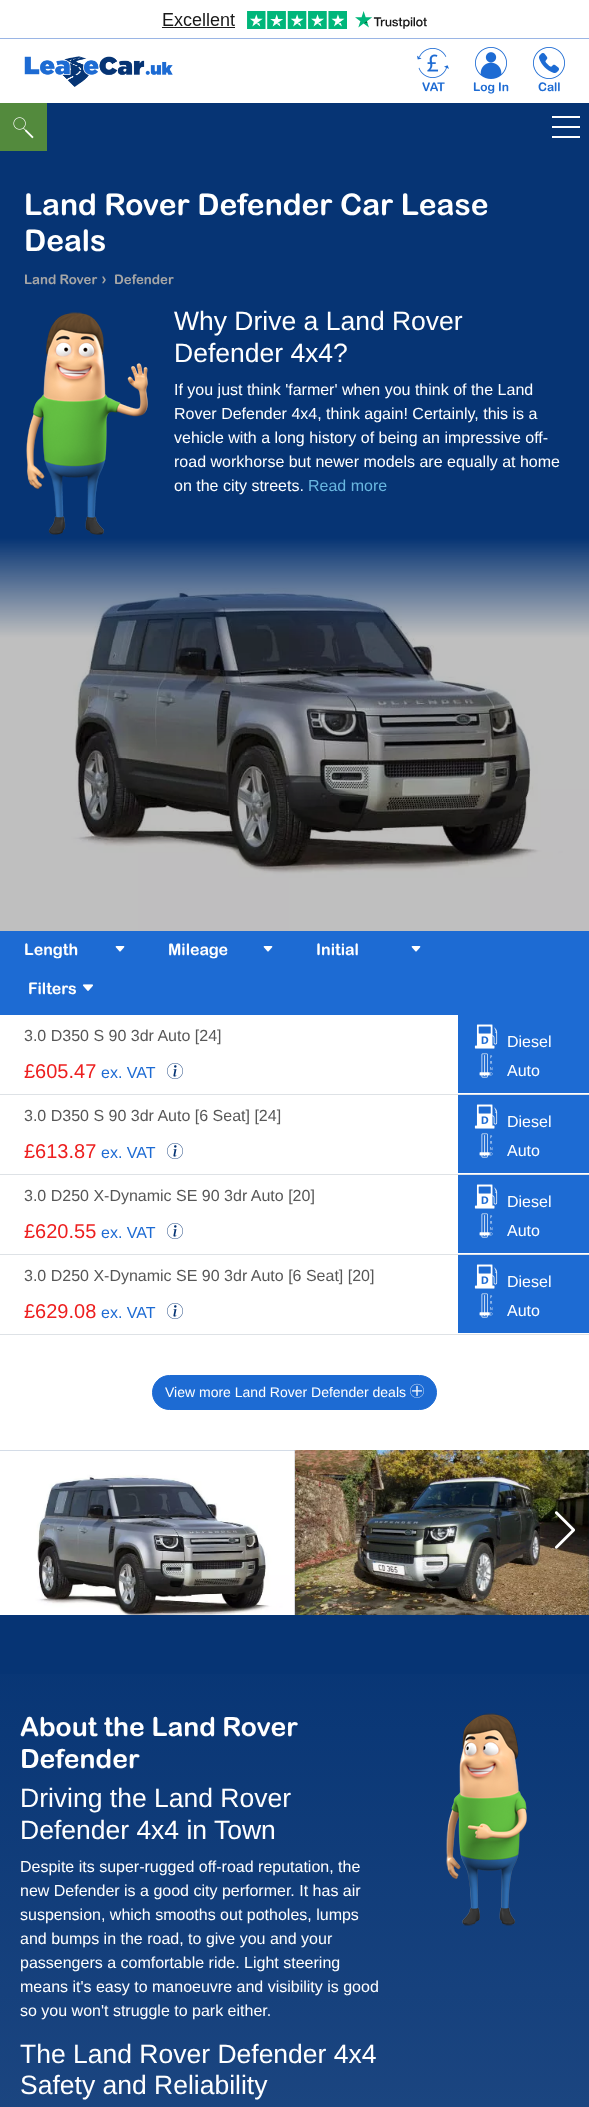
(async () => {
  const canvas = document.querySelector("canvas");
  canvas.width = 589;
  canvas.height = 2107;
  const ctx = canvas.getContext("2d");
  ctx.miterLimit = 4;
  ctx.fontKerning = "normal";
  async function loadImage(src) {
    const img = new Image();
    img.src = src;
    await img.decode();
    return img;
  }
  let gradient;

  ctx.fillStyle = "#063474";
  ctx.fillRect(0, 0, 589, 2107);
  ctx.fillStyle = "#ffffff";
  ctx.fillRect(0, 0, 589, 103);
  ctx.fillStyle = "#9ab5e5";
  ctx.fillRect(0, 38, 589, 1);
  ctx.drawImage(await loadImage("img/1.png"), 161, 11, 266, 18);
  ctx.drawImage(await loadImage("img/2.png"), 24, 56, 149, 31);
  ctx.drawImage(await loadImage("img/3.png"), 417, 48, 32, 30);
  ctx.drawImage(await loadImage("img/4.png"), 475, 47, 32, 32);
  ctx.drawImage(await loadImage("img/5.png"), 533, 47, 32, 32);
  ctx.fillStyle = "#538a3d";
  ctx.fillRect(0, 103, 47, 48);
  ctx.drawImage(await loadImage("img/6.png"), 13, 117, 21, 22);
  for (const [x, y, w, h, color] of [
    [552, 126, 28, 2, "#ffffff"],
    [552, 116, 28, 2, "#ffffff"],
    [552, 136, 28, 2, "#ffffff"],
  ]) {
    ctx.fillStyle = color;
    ctx.fillRect(x, y, w, h);
  }
  ctx.drawImage(await loadImage("img/7.png"), 26, 312, 122, 223);
  ctx.drawImage(await loadImage("img/8.png"), 0, 538, 589, 393);
  ctx.fillStyle = "#1d6bd3";
  ctx.fillRect(0, 931, 589, 84);
  ctx.drawImage(await loadImage("img/9.png"), 115, 946, 10, 6);
  ctx.drawImage(await loadImage("img/9.png"), 263, 946, 10, 6);
  ctx.drawImage(await loadImage("img/9.png"), 411, 946, 10, 6);
  ctx.drawImage(await loadImage("img/10.png"), 82, 984, 11, 7);
  ctx.fillStyle = "#ffffff";
  ctx.fillRect(0, 1015, 589, 435);
  ctx.drawImage(await loadImage("img/11.png"), 167, 1063, 16, 16);
  ctx.fillStyle = "#1d6bd3";
  ctx.fillRect(458, 1015, 131, 78);
  ctx.fillStyle = "#dee2e6";
  ctx.fillRect(0, 1094, 589, 1);
  ctx.drawImage(await loadImage("img/12.png"), 474, 1024, 24, 25);
  ctx.drawImage(await loadImage("img/13.png"), 479, 1053, 14, 25);
  ctx.drawImage(await loadImage("img/11.png"), 167, 1143, 16, 16);
  ctx.fillStyle = "#1d6bd3";
  ctx.fillRect(458, 1095, 131, 78);
  ctx.fillStyle = "#dee2e6";
  ctx.fillRect(0, 1174, 589, 1);
  ctx.drawImage(await loadImage("img/12.png"), 474, 1104, 24, 25);
  ctx.drawImage(await loadImage("img/13.png"), 479, 1133, 14, 25);
  ctx.drawImage(await loadImage("img/11.png"), 167, 1223, 16, 16);
  ctx.fillStyle = "#1d6bd3";
  ctx.fillRect(458, 1175, 131, 78);
  ctx.fillStyle = "#dee2e6";
  ctx.fillRect(0, 1254, 589, 1);
  ctx.drawImage(await loadImage("img/12.png"), 474, 1184, 24, 25);
  ctx.drawImage(await loadImage("img/13.png"), 479, 1213, 14, 25);
  ctx.drawImage(await loadImage("img/11.png"), 167, 1303, 16, 16);
  ctx.fillStyle = "#1d6bd3";
  ctx.fillRect(458, 1255, 131, 78);
  ctx.fillStyle = "#dee2e6";
  ctx.fillRect(0, 1334, 589, 1);
  ctx.drawImage(await loadImage("img/12.png"), 474, 1264, 24, 25);
  ctx.drawImage(await loadImage("img/13.png"), 479, 1293, 14, 25);
  ctx.fillStyle = "#1d6bd3";
  ctx.beginPath();
  ctx.roundRect(152.5, 1375.5, 284, 34, 17);
  ctx.fill();
  ctx.strokeStyle = "#1d6bd3";
  ctx.stroke();
  ctx.drawImage(await loadImage("img/14.png"), 410, 1383, 14, 15);
  ctx.drawImage(await loadImage("img/15.png"), 0, 1450, 295, 165);
  ctx.drawImage(await loadImage("img/16.png"), 294, 1450, 295, 165);
  ctx.drawImage(await loadImage("img/17.png"), 554, 1511, 21, 38);
  gradient = ctx.createLinearGradient(294, 1615, 295, 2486);
  gradient.addColorStop(0, "#063474");
  gradient.addColorStop(1, "#2b5289");
  ctx.fillStyle = gradient;
  ctx.fillRect(0, 1674, 589, 433);
  ctx.drawImage(await loadImage("img/18.png"), 446, 1713, 81, 213);
  ctx.font = "bold 12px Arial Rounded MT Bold";
  ctx.fillStyle = "#1d6bd3";
  for (const [text, x, y] of [
    ["VAT", 422, 91],
    ["Log In", 473, 91],
    ["Call", 538, 91],
  ]) {
    ctx.fillText(text, x, y);
  }
  ctx.font = "bold 30px Arial Rounded MT Bold";
  ctx.fillStyle = "#ffffff";
  ctx.fillText("Land Rover Defender Car Lease", 24, 215);
  ctx.fillText("Deals", 24, 251);
  ctx.font = "bold 13.25px Arial Rounded MT Bold";
  ctx.fillStyle = "#a6a6a6";
  ctx.fillText("Land Rover", 24, 284);
  ctx.font = "bold 16px Arial Rounded MT Bold";
  ctx.fillText("›", 101, 284);
  ctx.font = "bold 13.25px Arial Rounded MT Bold";
  ctx.fillText("Defender", 114, 284);
  ctx.font = "26.5px Liberation Sans";
  ctx.fillStyle = "#ffffff";
  ctx.fillText("Why Drive a Land Rover", 174, 330);
  ctx.fillText("Defender 4x4?", 174, 362);
  ctx.font = "16px Liberation Sans";
  for (const [text, x, y] of [
    ["If you just think 'farmer' when you think of the Land", 174, 395],
    ["Rover Defender 4x4, think again! Certainly, this is a", 174, 419],
    ["vehicle with a long history of being an impressive off-", 174, 443],
    ["road workhorse but newer models are equally at home", 174, 467],
    ["on the city streets.", 174, 491],
  ]) {
    ctx.fillText(text, x, y);
  }
  ctx.fillStyle = "#69b7e0";
  ctx.fillText("Read more", 308, 491);
  ctx.font = "bold 16px Arial Rounded MT Bold";
  ctx.fillStyle = "#ffffff";
  for (const [text, x, y] of [
    ["Length", 24, 955],
    ["Mileage", 168, 955],
    ["Initial", 316, 955],
    ["Filters", 28, 994],
  ]) {
    ctx.fillText(text, x, y);
  }
  ctx.font = "16px Liberation Sans";
  ctx.fillStyle = "#575757";
  ctx.fillText("3.0 D350 S 90 3dr Auto [24]", 24, 1041);
  ctx.font = "20px Liberation Sans";
  ctx.fillStyle = "#ed1f1f";
  ctx.fillText("£605.47", 24, 1078);
  ctx.font = "16px Liberation Sans";
  ctx.fillStyle = "#1d6bd3";
  ctx.fillText("ex. VAT", 101, 1078);
  ctx.fillStyle = "#ffffff";
  ctx.fillText("Diesel", 507, 1047);
  ctx.fillText("Auto", 507, 1076);
  ctx.fillStyle = "#575757";
  ctx.fillText("3.0 D350 S 90 3dr Auto [6 Seat] [24]", 24, 1121);
  ctx.font = "20px Liberation Sans";
  ctx.fillStyle = "#ed1f1f";
  ctx.fillText("£613.87", 24, 1158);
  ctx.font = "16px Liberation Sans";
  ctx.fillStyle = "#1d6bd3";
  ctx.fillText("ex. VAT", 101, 1158);
  ctx.fillStyle = "#ffffff";
  ctx.fillText("Diesel", 507, 1127);
  ctx.fillText("Auto", 507, 1156);
  ctx.fillStyle = "#575757";
  ctx.fillText("3.0 D250 X-Dynamic SE 90 3dr Auto [20]", 24, 1201);
  ctx.font = "20px Liberation Sans";
  ctx.fillStyle = "#ed1f1f";
  ctx.fillText("£620.55", 24, 1238);
  ctx.font = "16px Liberation Sans";
  ctx.fillStyle = "#1d6bd3";
  ctx.fillText("ex. VAT", 101, 1238);
  ctx.fillStyle = "#ffffff";
  ctx.fillText("Diesel", 507, 1207);
  ctx.fillText("Auto", 507, 1236);
  ctx.fillStyle = "#575757";
  ctx.fillText("3.0 D250 X-Dynamic SE 90 3dr Auto [6 Seat] [20]", 24, 1281);
  ctx.font = "20px Liberation Sans";
  ctx.fillStyle = "#ed1f1f";
  ctx.fillText("£629.08", 24, 1318);
  ctx.font = "16px Liberation Sans";
  ctx.fillStyle = "#1d6bd3";
  ctx.fillText("ex. VAT", 101, 1318);
  ctx.fillStyle = "#ffffff";
  ctx.fillText("Diesel", 507, 1287);
  ctx.fillText("Auto", 507, 1316);
  ctx.font = "14px Liberation Sans";
  ctx.fillText("View more Land Rover Defender deals", 165, 1397);
  ctx.font = "bold 26.5px Arial Rounded MT Bold";
  ctx.fillText("About the Land Rover", 20, 1736);
  ctx.fillText("Defender", 20, 1768);
  ctx.font = "26.5px Liberation Sans";
  ctx.fillText("Driving the Land Rover", 20, 1807);
  ctx.fillText("Defender 4x4 in Town", 20, 1839);
  ctx.font = "16px Liberation Sans";
  for (const [text, x, y] of [
    ["Despite its super-rugged off-road reputation, the", 20, 1872],
    ["new Defender is a good city performer. It has air", 20, 1896],
    ["suspension, which smooths out potholes, lumps", 20, 1920],
    ["and bumps in the road, to give you and your", 20, 1944],
    ["passengers a comfortable ride. Light steering", 20, 1968],
    ["means it's easy to manoeuvre and visibility is good", 20, 1992],
    ["so you won't struggle to park either.", 20, 2016],
  ]) {
    ctx.fillText(text, x, y);
  }
  ctx.font = "26.5px Liberation Sans";
  ctx.fillText("The Land Rover Defender 4x4", 20, 2063);
  ctx.fillText("Safety and Reliability", 20, 2094);
})();
